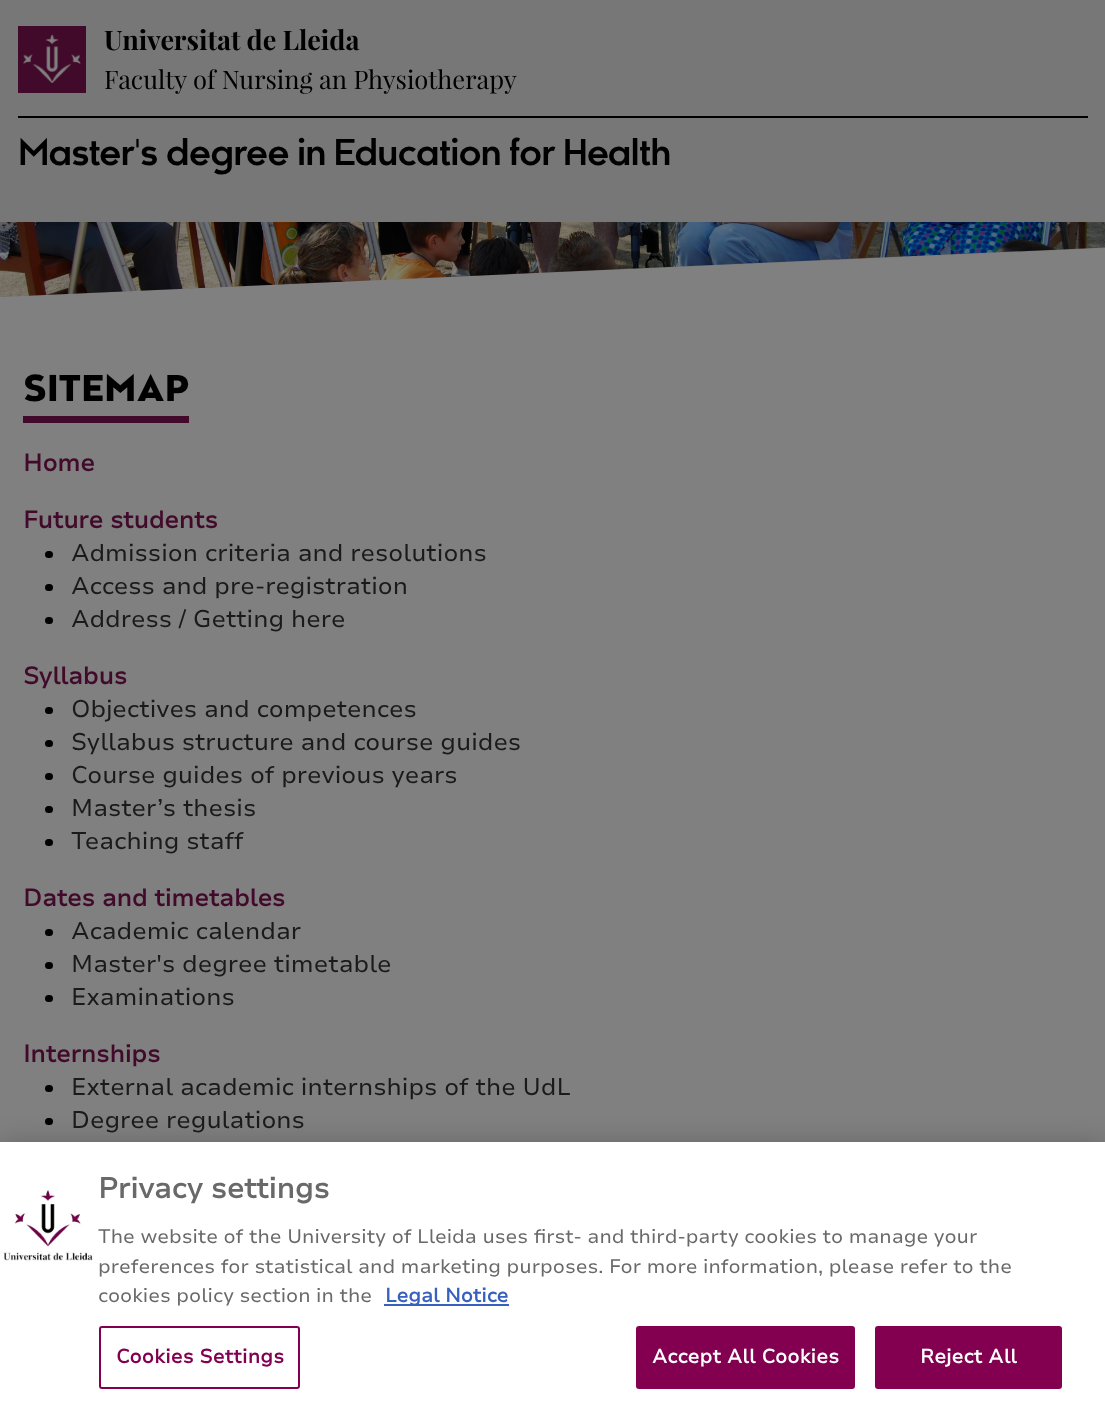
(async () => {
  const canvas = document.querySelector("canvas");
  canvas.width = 1105;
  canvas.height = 1421;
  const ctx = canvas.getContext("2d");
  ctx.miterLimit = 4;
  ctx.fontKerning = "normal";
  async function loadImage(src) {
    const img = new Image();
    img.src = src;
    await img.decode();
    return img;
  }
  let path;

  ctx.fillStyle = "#808080";
  ctx.fillRect(0, 0, 1105, 1421);
  ctx.fillStyle = "#777777";
  ctx.fillRect(0, 0, 1105, 222);
  ctx.fillStyle = "#420a2a";
  ctx.fillRect(18, 26, 68, 67);
  ctx.drawImage(await loadImage("img/1.png"), 23, 34, 58, 49);
  ctx.fillStyle = "#000000";
  ctx.fillRect(18, 116, 1070, 2);
  ctx.fillStyle = "#777777";
  path = new Path2D("M0 222V297L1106 248V222Z");
  ctx.fill(path);
  ctx.drawImage(await loadImage("img/2.png"), 0, 222, 1105, 75);
  ctx.fillStyle = "#420a2a";
  ctx.fillRect(23, 416, 166, 7);
  ctx.fillStyle = "#000000";
  ctx.beginPath();
  ctx.roundRect(45, 551, 8, 7, 3.5);
  ctx.fill();
  ctx.beginPath();
  ctx.roundRect(45, 584, 8, 7, 3.5);
  ctx.fill();
  ctx.beginPath();
  ctx.roundRect(45, 617, 8, 7, 3.5);
  ctx.fill();
  ctx.beginPath();
  ctx.roundRect(45, 707, 8, 7, 3.5);
  ctx.fill();
  ctx.beginPath();
  ctx.roundRect(45, 740, 8, 7, 3.5);
  ctx.fill();
  ctx.beginPath();
  ctx.roundRect(45, 773, 8, 7, 3.5);
  ctx.fill();
  ctx.beginPath();
  ctx.roundRect(45, 806, 8, 7, 3.5);
  ctx.fill();
  ctx.beginPath();
  ctx.roundRect(45, 839, 8, 7, 3.5);
  ctx.fill();
  ctx.beginPath();
  ctx.roundRect(45, 929, 8, 7, 3.5);
  ctx.fill();
  ctx.beginPath();
  ctx.roundRect(45, 962, 8, 7, 3.5);
  ctx.fill();
  ctx.beginPath();
  ctx.roundRect(45, 995, 8, 7, 3.5);
  ctx.fill();
  ctx.beginPath();
  ctx.roundRect(45, 1085, 8, 7, 3.5);
  ctx.fill();
  ctx.beginPath();
  ctx.roundRect(45, 1118, 8, 7, 3.5);
  ctx.fill();
  ctx.fillStyle = "rgba(0, 0, 0, 0.2)";
  ctx.filter = "blur(13.5px)";
  ctx.beginPath();
  ctx.rect(0, 1142, 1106, 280);
  ctx.fill();
  ctx.filter = "none";
  ctx.fillStyle = "#ffffff";
  ctx.fillRect(0, 1142, 1105, 279);
  ctx.drawImage(await loadImage("img/3.png"), 3, 1190, 90, 71);
  ctx.fillStyle = "#3860be";
  ctx.fillRect(384, 1304, 125, 2);
  ctx.beginPath();
  ctx.roundRect(100, 1327, 199, 61, 2);
  ctx.strokeStyle = "#830051";
  ctx.lineWidth = 2;
  ctx.stroke();
  ctx.fillStyle = "#830051";
  ctx.beginPath();
  ctx.roundRect(637, 1327, 217, 61, 2);
  ctx.fill();
  ctx.stroke();
  ctx.beginPath();
  ctx.roundRect(876, 1327, 185, 61, 2);
  ctx.fill();
  ctx.stroke();
  ctx.font = "bold 27px Playfair Display";
  ctx.fillStyle = "#000000";
  ctx.fillText("Universitat de Lleida", 104, 50);
  ctx.font = "25.5px Playfair Display";
  ctx.fillText("Faculty of Nursing an Physiotherapy", 104, 89);
  ctx.letterSpacing = "-1.45px";
  ctx.font = "bold 36px 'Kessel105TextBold'";
  ctx.fillText("Master's degree in Education for Health", 18, 165);
  ctx.letterSpacing = "0px";
  ctx.font = "900 36px 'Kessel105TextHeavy'";
  ctx.fillText("SITEMAP", 23, 401);
  ctx.font = "bold 24px Nunito Sans";
  ctx.fillStyle = "#420a2a";
  ctx.fillText("Home", 23, 471);
  ctx.fillText("Future students", 23, 528);
  ctx.font = "24px Nunito Sans";
  ctx.fillStyle = "#1a1a1a";
  for (const [text, x, y] of [
    ["Admission criteria and resolutions", 71, 561],
    ["Access and pre-registration", 71, 594],
    ["Address / Getting here", 71, 627],
  ]) {
    ctx.fillText(text, x, y);
  }
  ctx.font = "bold 24px Nunito Sans";
  ctx.fillStyle = "#420a2a";
  ctx.fillText("Syllabus", 23, 684);
  ctx.font = "24px Nunito Sans";
  ctx.fillStyle = "#1a1a1a";
  for (const [text, x, y] of [
    ["Objectives and competences", 71, 717],
    ["Syllabus structure and course guides", 71, 750],
    ["Course guides of previous years", 71, 783],
    ["Master’s thesis", 71, 816],
    ["Teaching staff", 71, 849],
  ]) {
    ctx.fillText(text, x, y);
  }
  ctx.font = "bold 24px Nunito Sans";
  ctx.fillStyle = "#420a2a";
  ctx.fillText("Dates and timetables", 23, 906);
  ctx.font = "24px Nunito Sans";
  ctx.fillStyle = "#1a1a1a";
  for (const [text, x, y] of [
    ["Academic calendar", 71, 939],
    ["Master's degree timetable", 71, 972],
    ["Examinations", 71, 1005],
  ]) {
    ctx.fillText(text, x, y);
  }
  ctx.font = "bold 24px Nunito Sans";
  ctx.fillStyle = "#420a2a";
  ctx.fillText("Internships", 23, 1062);
  ctx.font = "24px Nunito Sans";
  ctx.fillStyle = "#1a1a1a";
  ctx.fillText("External academic internships of the UdL", 71, 1095);
  ctx.fillText("Degree regulations", 71, 1128);
  ctx.font = "bold 28.75px Nunito Sans";
  ctx.fillStyle = "#696969";
  ctx.fillText("Privacy settings", 98, 1198);
  ctx.font = "19.5px Nunito Sans";
  for (const [text, x, y] of [
    ["The website of the University of Lleida uses first- and third-party cookies to manage your", 98, 1243],
    ["preferences for statistical and marketing purposes. For more information, please refer to the", 98, 1273],
    ["cookies policy section in the", 98, 1302],
  ]) {
    ctx.fillText(text, x, y);
  }
  ctx.font = "bold 19.5px Nunito Sans";
  ctx.fillStyle = "#3860be";
  ctx.fillText("Legal Notice", 385, 1302);
  ctx.letterSpacing = "0.25px";
  ctx.fillStyle = "#830051";
  ctx.fillText("Cookies Settings", 116, 1363);
  ctx.fillStyle = "#ffffff";
  ctx.fillText("Accept All Cookies", 652, 1363);
  ctx.fillText("Reject All", 920, 1363);
})();
